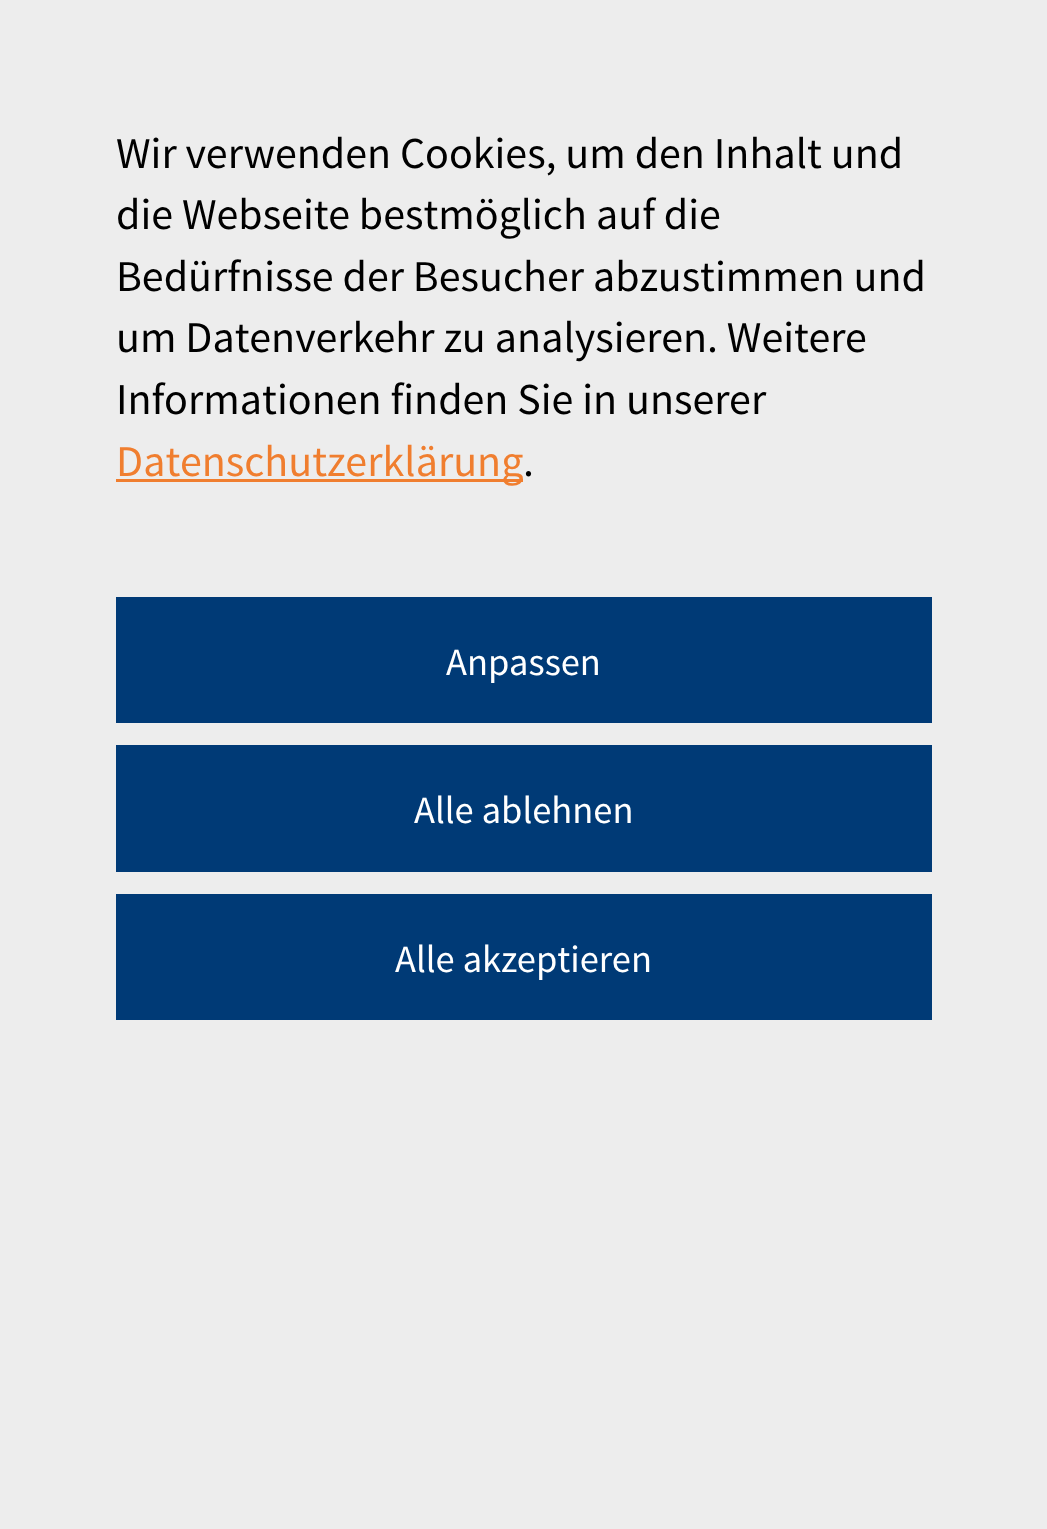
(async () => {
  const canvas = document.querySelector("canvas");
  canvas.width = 1047;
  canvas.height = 1529;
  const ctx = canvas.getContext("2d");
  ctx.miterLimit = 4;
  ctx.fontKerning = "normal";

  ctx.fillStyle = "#ededed";
  ctx.fillRect(0, 0, 1047, 1529);
  for (const [x, y, w, h, color] of [
    [116, 479, 407, 3, "#f07e2f"],
    [116, 597, 816, 126, "#003a76"],
    [116, 745, 816, 127, "#003a76"],
    [116, 894, 816, 126, "#003a76"],
  ]) {
    ctx.fillStyle = color;
    ctx.fillRect(x, y, w, h);
  }
  ctx.font = "44px Source Sans Pro";
  ctx.fillStyle = "#000000";
  for (const [text, x, y] of [
    ["Wir verwenden Cookies, um den Inhalt und", 116, 168],
    ["die Webseite bestmöglich auf die", 116, 229],
    ["Bedürfnisse der Besucher abzustimmen und", 116, 291],
    ["um Datenverkehr zu analysieren. Weitere", 116, 352],
    ["Informationen finden Sie in unserer", 116, 414],
  ]) {
    ctx.fillText(text, x, y);
  }
  ctx.fillStyle = "#f07e2f";
  ctx.fillText("Datenschutzerklärung", 116, 476);
  ctx.fillStyle = "#000000";
  ctx.fillText(".", 523, 476);
  ctx.font = "38.5px Source Sans Pro";
  ctx.fillStyle = "#ffffff";
  for (const [text, x, y] of [
    ["Anpassen", 446, 675],
    ["Alle ablehnen", 414, 823],
    ["Alle akzeptieren", 395, 972],
  ]) {
    ctx.fillText(text, x, y);
  }
})();
